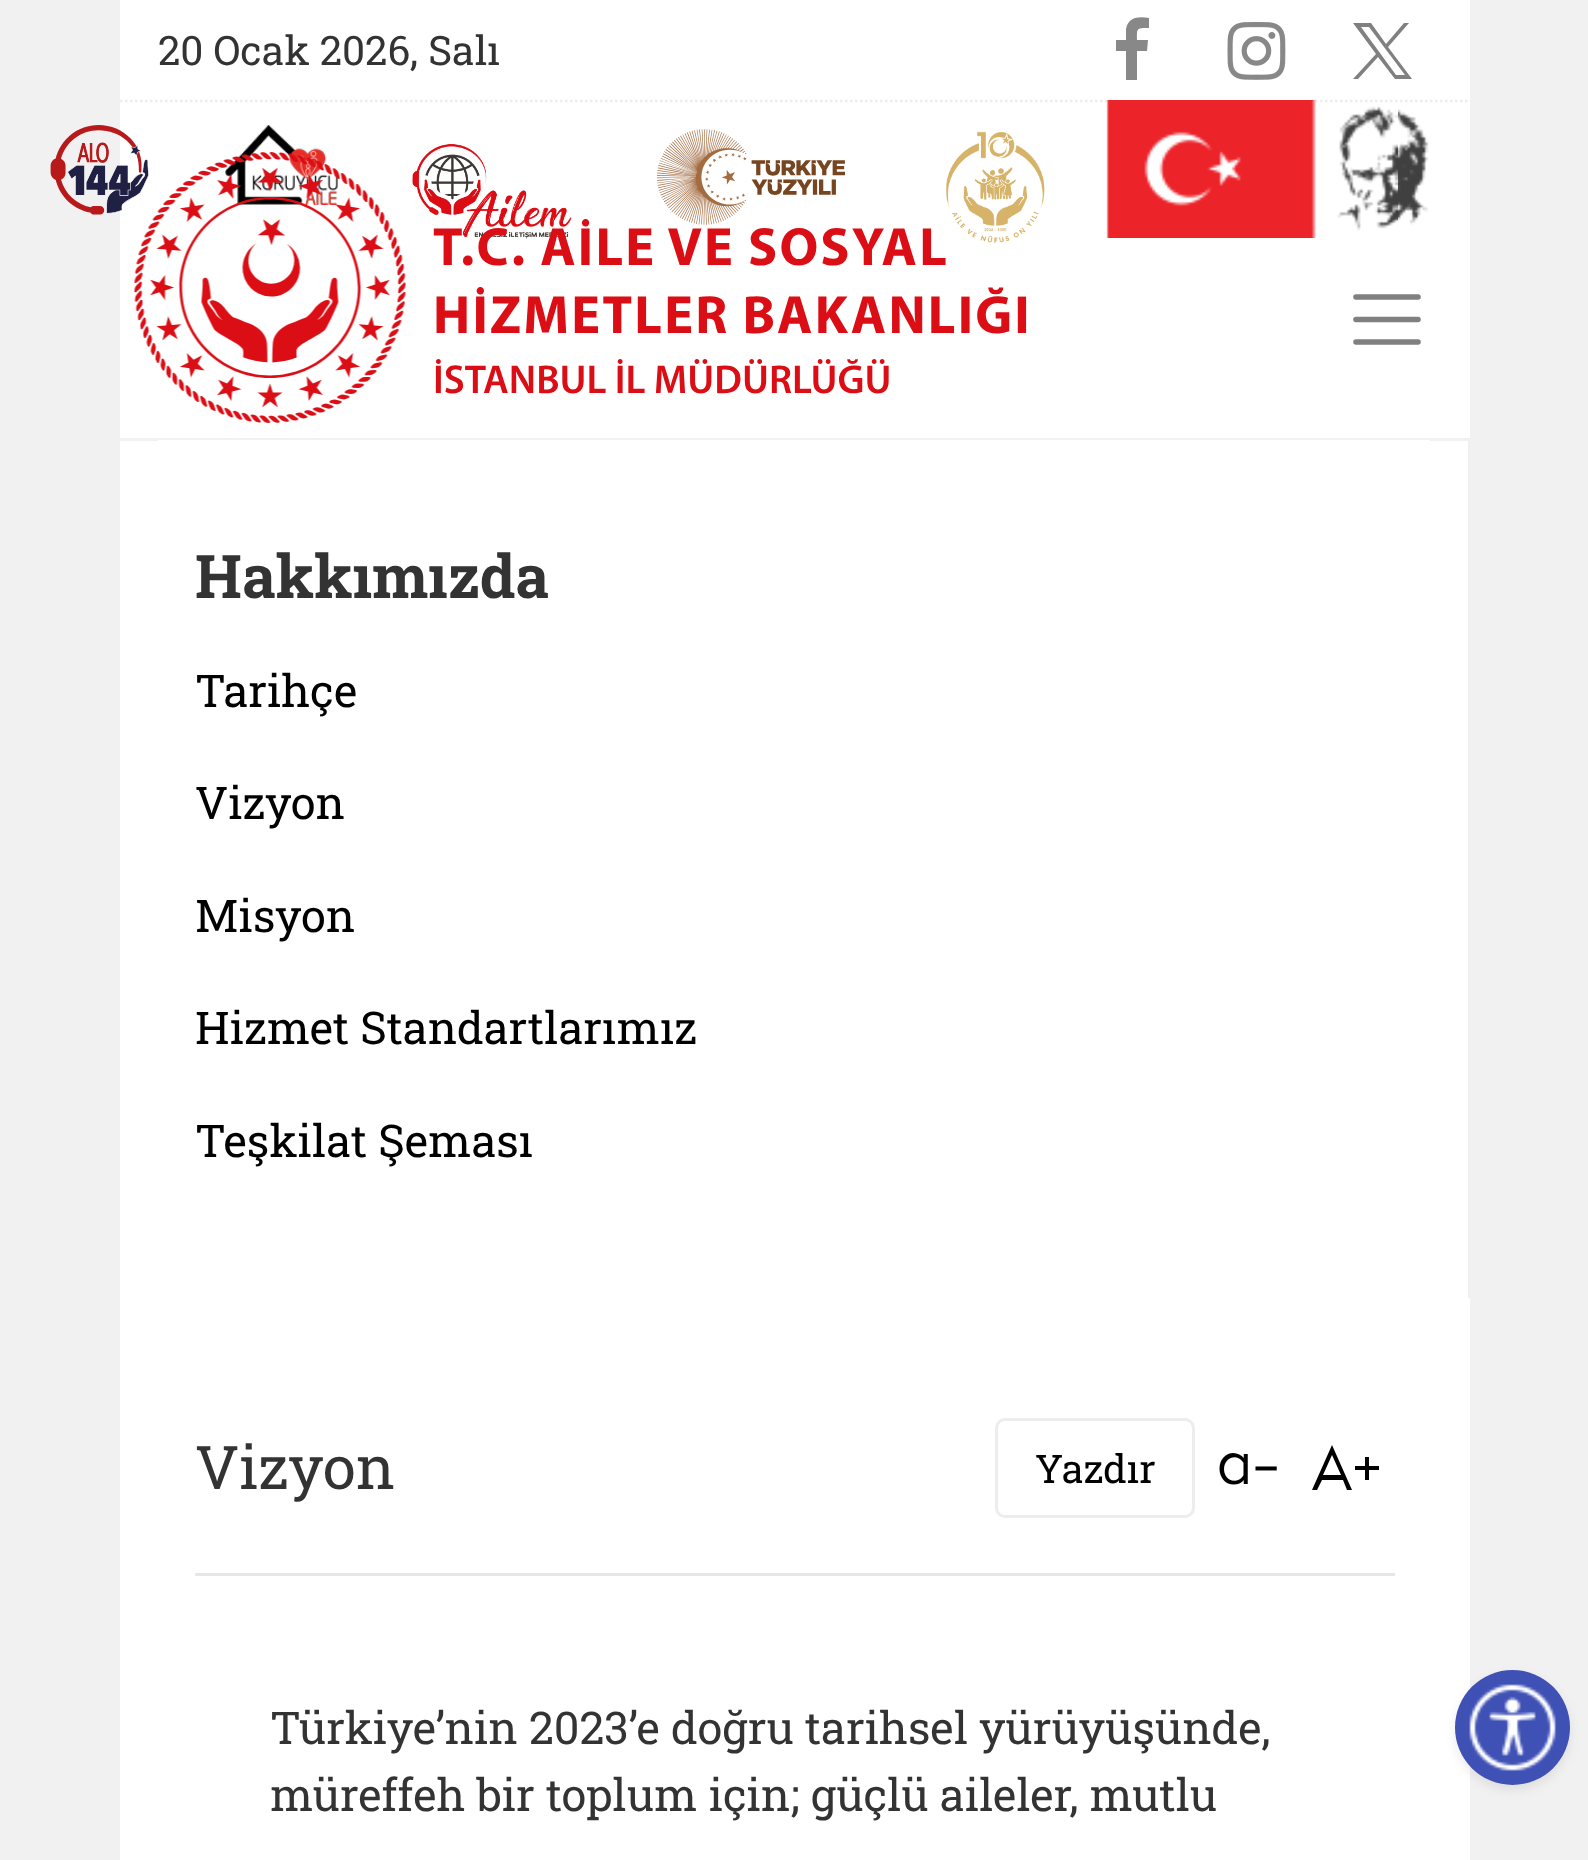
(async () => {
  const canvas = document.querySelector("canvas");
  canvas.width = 1588;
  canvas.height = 1860;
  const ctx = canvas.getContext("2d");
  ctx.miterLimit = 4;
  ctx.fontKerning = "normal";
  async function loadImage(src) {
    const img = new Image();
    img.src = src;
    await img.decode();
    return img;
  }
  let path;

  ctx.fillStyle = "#f1f1f1";
  ctx.fillRect(0, 0, 1588, 1860);
  ctx.fillStyle = "#ffffff";
  ctx.fillRect(120, 0, 1350, 438);
  path = new Path2D("M120 101H1470");
  ctx.strokeStyle = "#ededed";
  ctx.lineWidth = 2.5;
  ctx.setLineDash([2.5, 2.5]);
  ctx.stroke(path);
  ctx.fillStyle = "#888888";
  path = new Path2D("M1149 18V28C1136 28 1137 28 1137 40H1148L1147 51H1137V80H1126V51H1116V40H1126V29C1128 17 1139 16 1149 18Z");
  ctx.fill(path);
  ctx.drawImage(await loadImage("img/1.png"), 1227, 22, 59, 58);
  ctx.fillStyle = "#808080";
  path = new Path2D("M1353 23L1376 54L1353 79H1358L1378 57L1395 79H1412L1388 47L1409 23H1404L1386 44L1371 23ZM1361 27H1369L1405 75H1396Z");
  ctx.fill(path);
  ctx.drawImage(await loadImage("img/2.png"), 1106, 100, 323, 138);
  ctx.drawImage(await loadImage("img/3.png"), 50, 125, 99, 90);
  ctx.drawImage(await loadImage("img/4.png"), 225, 125, 113, 80);
  ctx.drawImage(await loadImage("img/5.png"), 412, 144, 160, 95);
  ctx.drawImage(await loadImage("img/6.png"), 656, 129, 189, 96);
  ctx.drawImage(await loadImage("img/7.png"), 946, 131, 99, 112);
  ctx.drawImage(await loadImage("img/8.png"), 134, 152, 272, 271);
  path = new Path2D("M1356 297H1418M1356 319.5H1418M1356 342H1418");
  ctx.strokeStyle = "#808080";
  ctx.lineWidth = 5.6;
  ctx.lineCap = "round";
  ctx.setLineDash([]);
  ctx.stroke(path);
  for (const [x, y, w, h, color] of [
    [120, 441, 1350, 1419, "#ffffff"],
    [1468, 440, 2, 858, "#efefef"],
    [158, 440, 1272, 1, "#ffffff"],
  ]) {
    ctx.fillStyle = color;
    ctx.fillRect(x, y, w, h);
  }
  ctx.beginPath();
  ctx.roundRect(996.5, 1419.5, 197, 97, 8.5);
  ctx.strokeStyle = "#ededed";
  ctx.lineWidth = 3;
  ctx.stroke();
  ctx.drawImage(await loadImage("img/9.png"), 1219, 1453, 58, 32);
  ctx.fillStyle = "#000000";
  path = new Path2D("M1332 1445L1352 1490H1347L1343 1480H1322L1317 1490H1312ZM1332 1455L1323 1475H1341ZM1369 1457V1466H1379V1470H1369V1480H1365V1470H1355V1466H1365V1457Z");
  ctx.fill(path);
  ctx.fillStyle = "#e6e6e6";
  ctx.fillRect(195, 1573, 1200, 3);
  ctx.fillStyle = "rgba(0, 0, 0, 0.08)";
  ctx.filter = "blur(5.5px)";
  ctx.beginPath();
  ctx.roundRect(1455, 1675, 115, 115, 57.5);
  ctx.fill();
  ctx.filter = "none";
  ctx.fillStyle = "#3f51b5";
  ctx.beginPath();
  ctx.arc(1512.5, 1727.5, 57.5, 0, Math.PI * 2);
  ctx.fill();
  ctx.drawImage(await loadImage("img/10.png"), 1469, 1684, 87, 87);
  ctx.font = "40.5px Roboto Slab";
  ctx.fillStyle = "#333333";
  ctx.fillText("20 Ocak 2026, Salı", 158, 65);
  ctx.letterSpacing = "2.2px";
  ctx.font = "bold 54px Myriad";
  ctx.fillStyle = "#db0d15";
  ctx.fillText("T.C. AİLE VE SOSYAL", 433, 265);
  ctx.fillText("HİZMETLER BAKANLIĞI", 433, 333);
  ctx.letterSpacing = "0px";
  ctx.font = "600 40.5px Myriad";
  ctx.fillText("İSTANBUL İL MÜDÜRLÜĞÜ", 433, 393);
  ctx.font = "bold 60px Roboto Slab";
  ctx.fillStyle = "#333333";
  ctx.fillText("Hakkımızda", 195, 598);
  ctx.font = "45px Roboto Slab";
  ctx.fillStyle = "#000000";
  for (const [text, x, y] of [
    ["Tarihçe", 195, 707],
    ["Vizyon", 195, 819],
    ["Misyon", 195, 932],
    ["Hizmet Standartlarımız", 195, 1044],
    ["Teşkilat Şeması", 195, 1157],
  ]) {
    ctx.fillText(text, x, y);
  }
  ctx.font = "60px Roboto Slab";
  ctx.fillStyle = "#333333";
  ctx.fillText("Vizyon", 195, 1489);
  ctx.font = "39.5px Roboto Slab";
  ctx.fillStyle = "#000000";
  ctx.fillText("Yazdır", 1035, 1483);
  ctx.font = "45px Roboto Slab";
  ctx.fillStyle = "#333333";
  ctx.fillText("Türkiye’nin 2023’e doğru tarihsel yürüyüşünde,", 270, 1744);
  ctx.fillText("müreffeh bir toplum için; güçlü aileler, mutlu", 270, 1811);
})();
